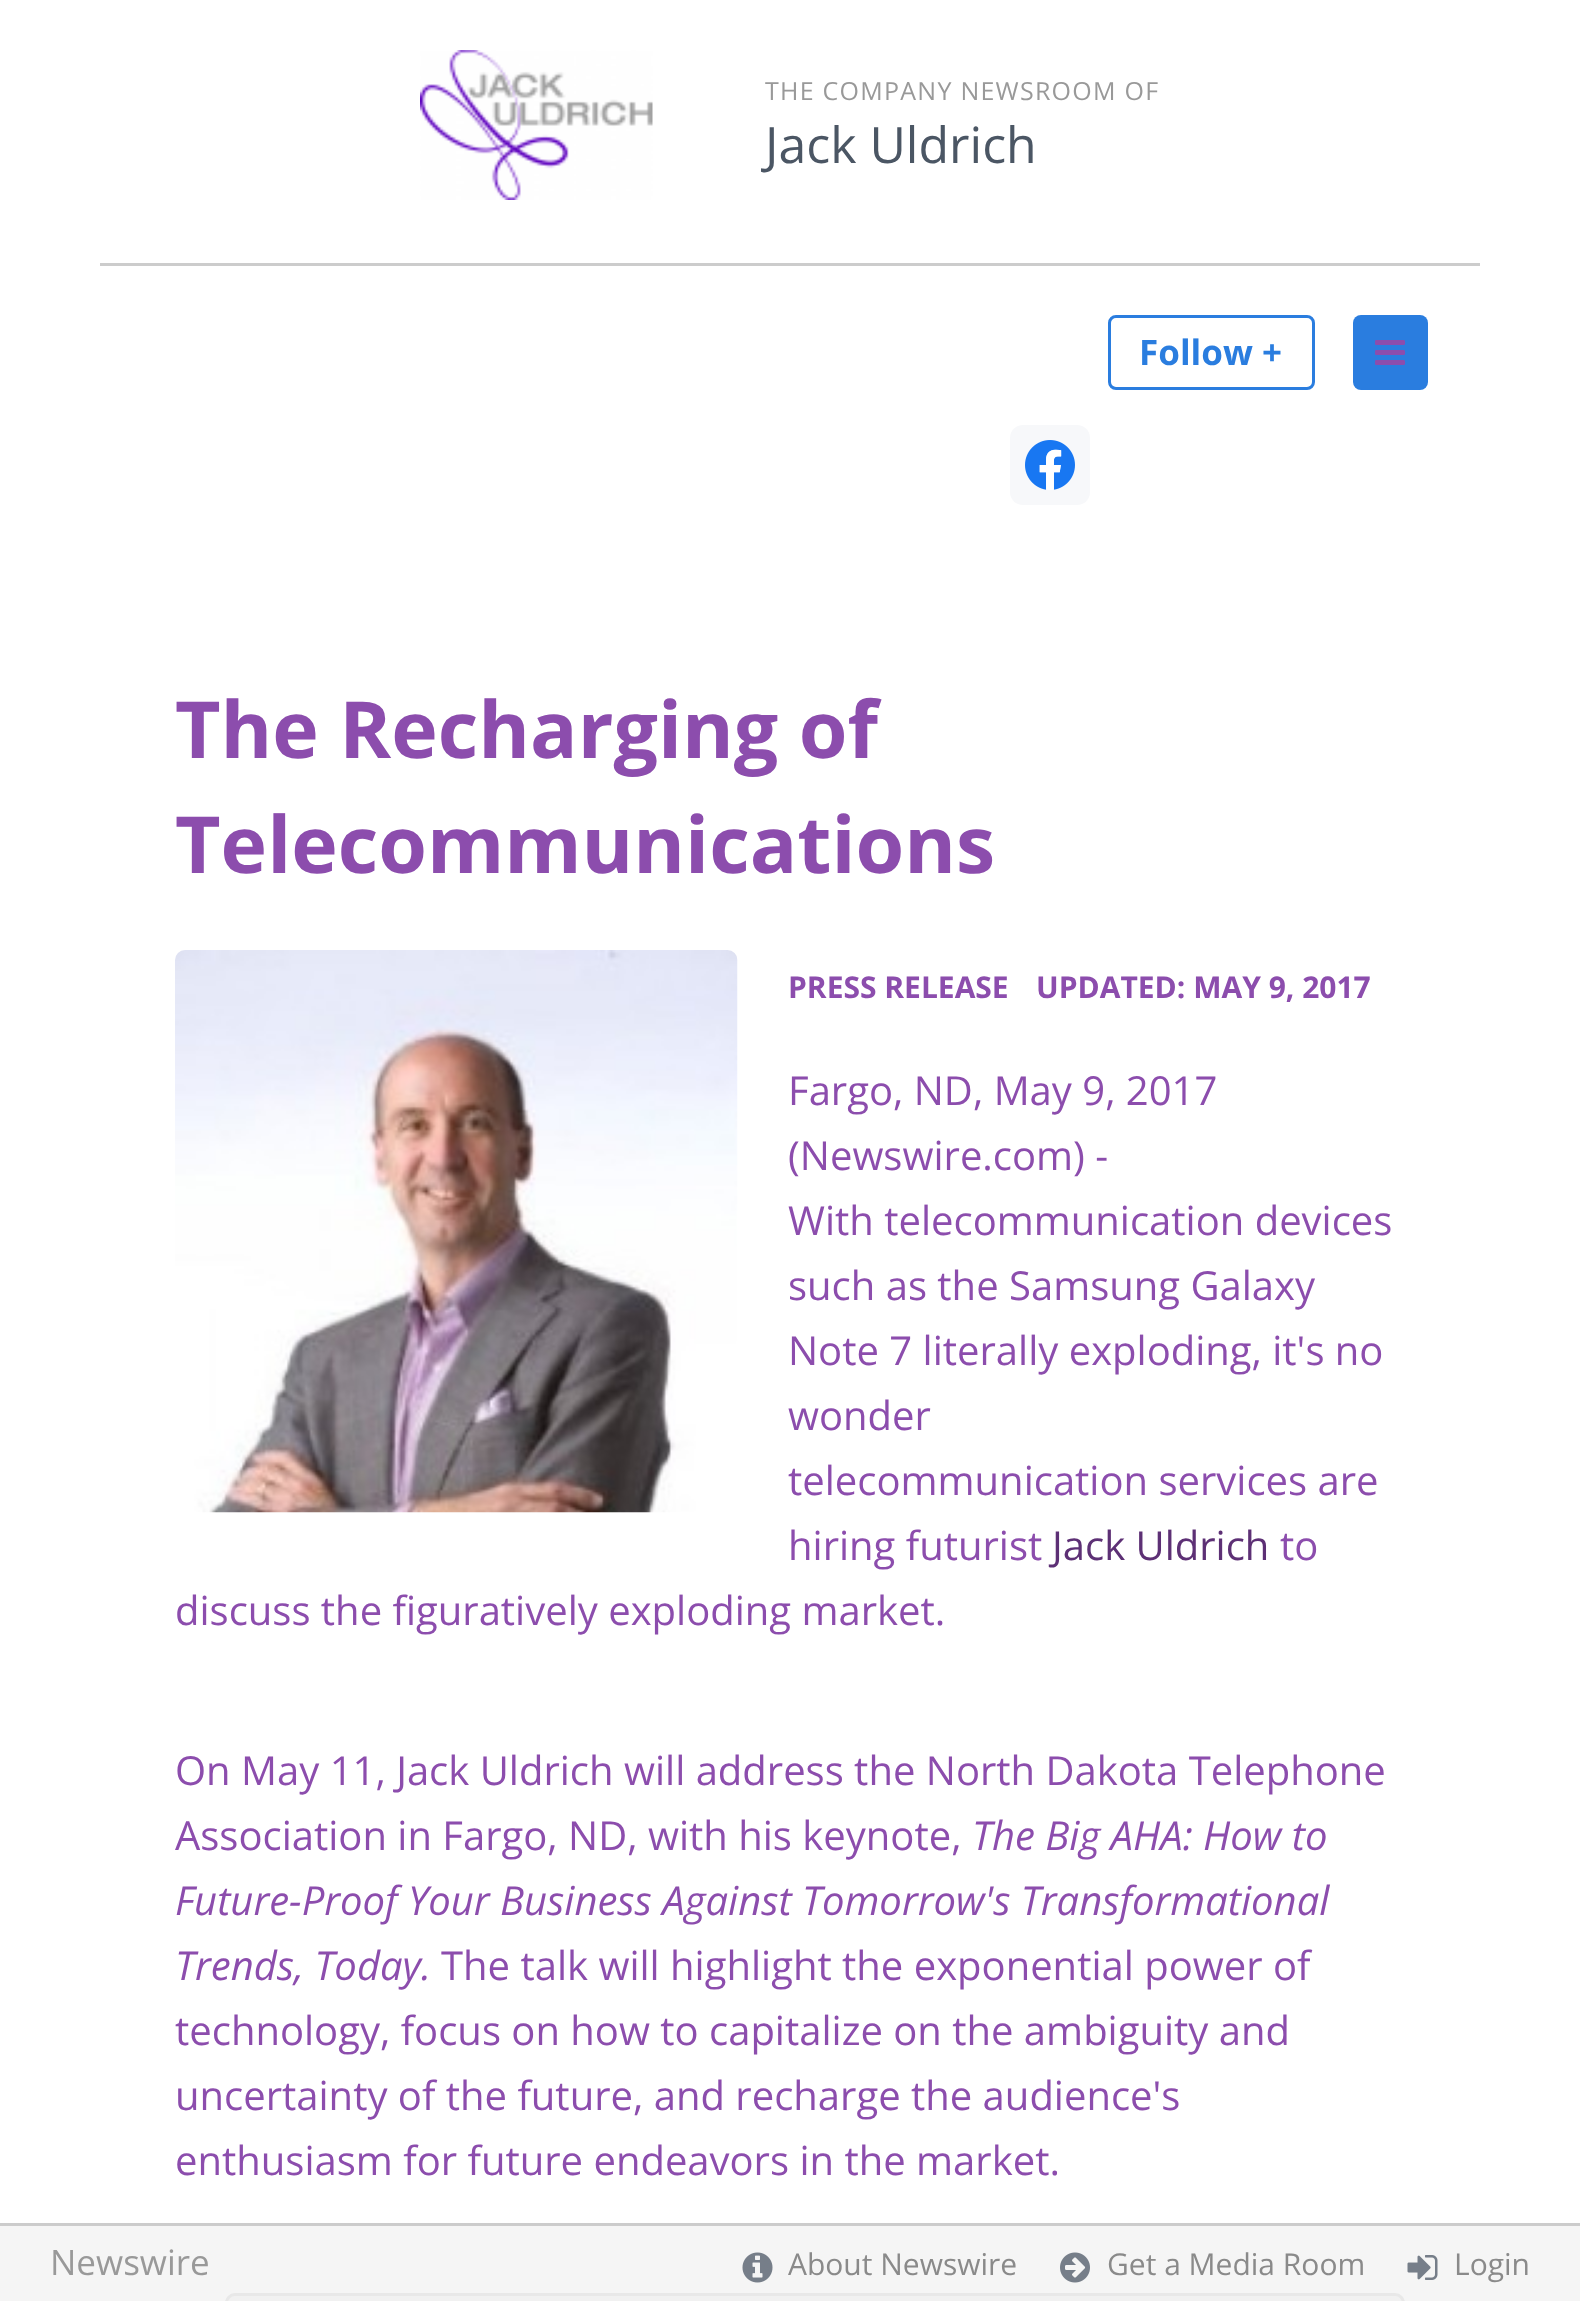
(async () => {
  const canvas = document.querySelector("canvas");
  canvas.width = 1580;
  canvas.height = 2301;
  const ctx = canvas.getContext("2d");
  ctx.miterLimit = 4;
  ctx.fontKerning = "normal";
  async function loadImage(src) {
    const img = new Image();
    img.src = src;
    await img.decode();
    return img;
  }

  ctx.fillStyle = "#ffffff";
  ctx.fillRect(0, 0, 1580, 2301);
  ctx.fillStyle = "#f5f5f5";
  ctx.fillRect(0, 2226, 1580, 75);
  ctx.fillStyle = "#cccccc";
  ctx.fillRect(100, 263, 1380, 3);
  ctx.drawImage(await loadImage("img/1.png"), 420, 50, 233, 150);
  ctx.beginPath();
  ctx.roundRect(1109.5, 316.5, 204, 72, 6.5);
  ctx.strokeStyle = "#2a7ddf";
  ctx.lineWidth = 3;
  ctx.stroke();
  ctx.fillStyle = "#2a7ddf";
  ctx.beginPath();
  ctx.roundRect(1353, 315, 75, 75, 8);
  ctx.fill();
  ctx.drawImage(await loadImage("img/2.png"), 1375, 340, 30, 25);
  ctx.fillStyle = "#f7f8fa";
  ctx.beginPath();
  ctx.roundRect(1010, 425, 80, 80, 13);
  ctx.fill();
  ctx.drawImage(await loadImage("img/3.png"), 1025, 440, 50, 50);
  ctx.drawImage(await loadImage("img/4.png"), 175, 950, 563, 563);
  ctx.fillStyle = "#f1f1f1";
  ctx.beginPath();
  ctx.roundRect(226.5, 2294.5, 1177, 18, 8.5);
  ctx.fill();
  ctx.strokeStyle = "#e8e8e8";
  ctx.stroke();
  ctx.fillStyle = "#cccccc";
  ctx.fillRect(0, 2223, 1580, 3);
  ctx.drawImage(await loadImage("img/5.png"), 742, 2252, 31, 31);
  ctx.drawImage(await loadImage("img/6.png"), 1060, 2252, 30, 31);
  ctx.drawImage(await loadImage("img/7.png"), 1407, 2255, 31, 25);
  ctx.letterSpacing = "1.25px";
  ctx.font = "25px Open Sans";
  ctx.fillStyle = "#999999";
  ctx.fillText("THE COMPANY NEWSROOM OF", 765, 100);
  ctx.letterSpacing = "0px";
  ctx.font = "50px Open Sans";
  ctx.fillStyle = "#4b5664";
  ctx.fillText("Jack Uldrich", 765, 163);
  ctx.font = "bold 35px Open Sans";
  ctx.fillStyle = "#2a7ddf";
  ctx.fillText("Follow +", 1139, 365);
  ctx.font = "bold 78.75px Open Sans";
  ctx.fillStyle = "#8c4dad";
  ctx.fillText("The Recharging of", 175, 758);
  ctx.fillText("Telecommunications", 175, 873);
  ctx.font = "bold 30px Open Sans";
  ctx.fillText("PRESS RELEASE", 788, 998);
  ctx.fillText("UPDATED: MAY 9, 2017", 1036, 998);
  ctx.font = "40px Open Sans";
  for (const [text, x, y] of [
    ["Fargo, ND, May 9, 2017", 788, 1105],
    ["(Newswire.com) -", 788, 1170],
    ["With telecommunication devices", 788, 1235],
    ["such as the Samsung Galaxy", 788, 1300],
    ["Note 7 literally exploding, it's no", 788, 1365],
    ["wonder", 788, 1430],
    ["telecommunication services are", 788, 1495],
    ["hiring futurist", 788, 1560],
  ]) {
    ctx.fillText(text, x, y);
  }
  ctx.fillStyle = "#5d3075";
  ctx.fillText("Jack Uldrich", 1052, 1560);
  ctx.fillStyle = "#8c4dad";
  for (const [text, x, y] of [
    ["to", 1280, 1560],
    ["discuss the figuratively exploding market.", 175, 1625],
    ["On May 11, Jack Uldrich will address the North Dakota Telephone", 175, 1785],
    ["Association in Fargo, ND, with his keynote,", 175, 1850],
  ]) {
    ctx.fillText(text, x, y);
  }
  ctx.font = "italic 40px Open Sans";
  for (const [text, x, y] of [
    ["The Big AHA: How to", 972, 1850],
    ["Future-Proof Your Business Against Tomorrow's Transformational", 175, 1915],
    ["Trends, Today.", 175, 1980],
  ]) {
    ctx.fillText(text, x, y);
  }
  ctx.font = "40px Open Sans";
  for (const [text, x, y] of [
    ["The talk will highlight the exponential power of", 441, 1980],
    ["technology, focus on how to capitalize on the ambiguity and", 175, 2045],
    ["uncertainty of the future, and recharge the audience's", 175, 2110],
    ["enthusiasm for future endeavors in the market.", 175, 2175],
  ]) {
    ctx.fillText(text, x, y);
  }
  ctx.font = "35px Open Sans";
  ctx.fillStyle = "#999999";
  ctx.fillText("Newswire", 50, 2275);
  ctx.font = "30px Open Sans";
  ctx.fillStyle = "#8a8a8a";
  for (const [text, x, y] of [
    ["About Newswire", 788, 2275],
    ["Get a Media Room", 1107, 2275],
    ["Login", 1454, 2275],
  ]) {
    ctx.fillText(text, x, y);
  }
})();
